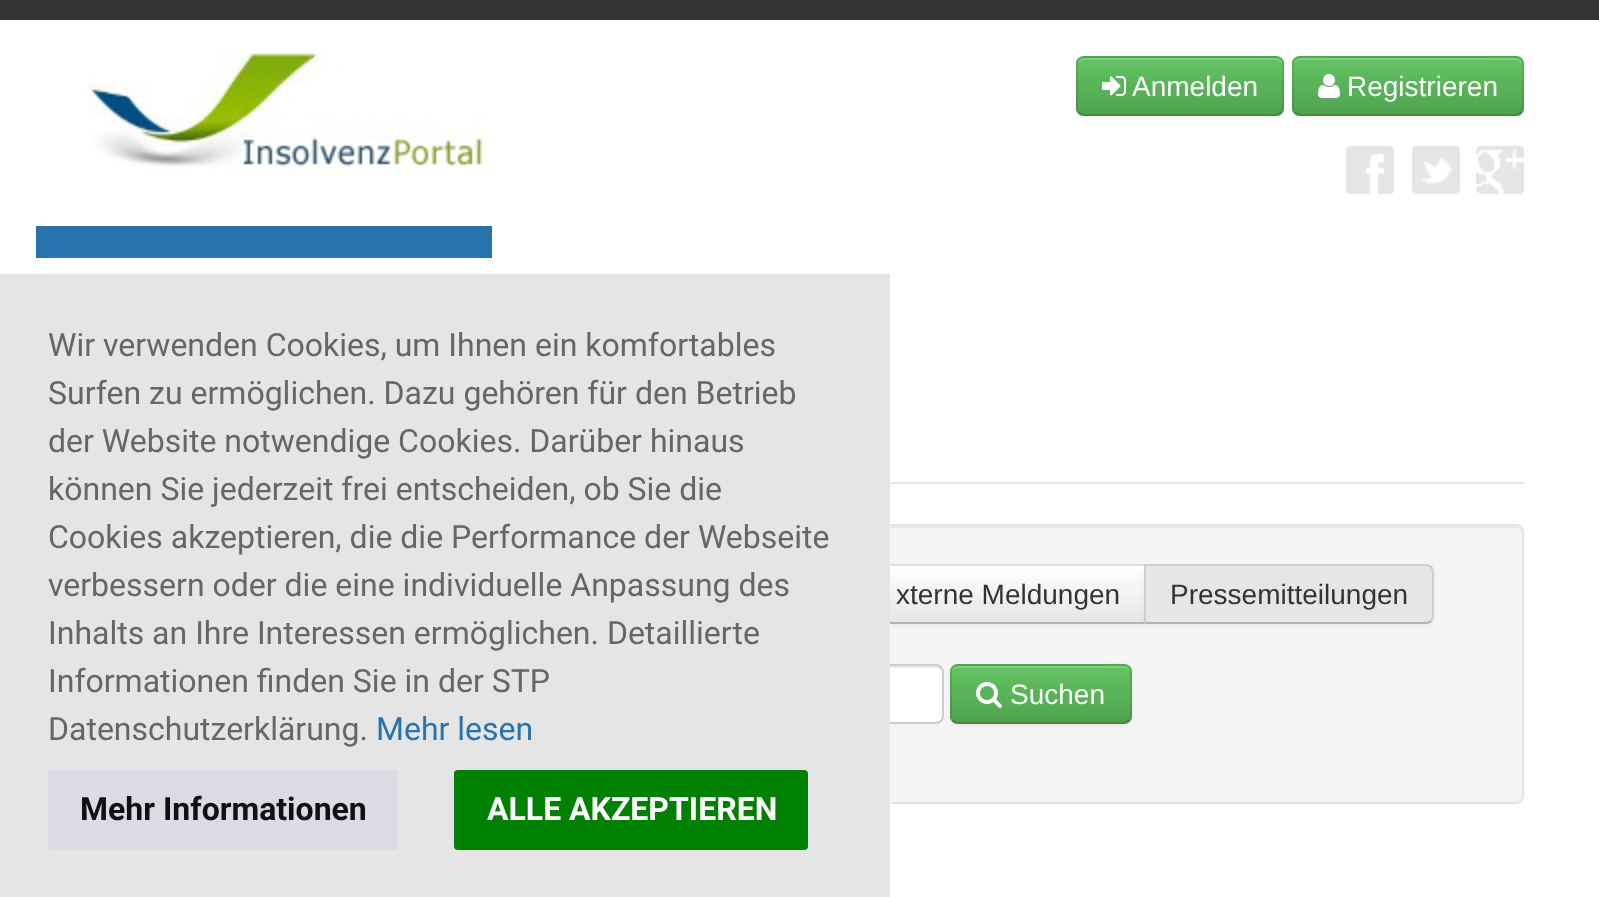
(async () => {
  const canvas = document.querySelector("canvas");
  canvas.width = 1599;
  canvas.height = 897;
  const ctx = canvas.getContext("2d");
  ctx.miterLimit = 4;
  ctx.fontKerning = "normal";
  async function loadImage(src) {
    const img = new Image();
    img.src = src;
    await img.decode();
    return img;
  }
  let gradient, path;

  ctx.fillStyle = "#ffffff";
  ctx.fillRect(0, 0, 1599, 897);
  ctx.fillStyle = "#f5f5f5";
  ctx.beginPath();
  ctx.roundRect(76, 524, 1448, 280, 8);
  ctx.fill();
  ctx.fillStyle = "#e9e9e9";
  path = new Path2D("M84 528H1516C1519 528 1522 531 1522 534C1522 530 1521 526 1516 526H84C79 526 78 530 78 534C78 531 81 528 84 528Z");
  ctx.fill(path);
  ctx.beginPath();
  ctx.roundRect(77, 525, 1446, 278, 7);
  ctx.strokeStyle = "#e3e3e3";
  ctx.lineWidth = 2;
  ctx.stroke();
  ctx.fillStyle = "rgba(0, 0, 0, 0.05)";
  ctx.filter = "blur(2px)";
  ctx.beginPath();
  ctx.rect(852, 566, 294, 60);
  ctx.fill();
  ctx.filter = "none";
  ctx.fillStyle = "#dddddd";
  path = new Path2D("M852 564H1146L1144 566H854Z");
  ctx.fill(path);
  ctx.fillStyle = "#b3b3b3";
  path = new Path2D("M1146 624H852L854 622H1144Z");
  ctx.fill(path);
  ctx.fillStyle = "#ffffff";
  ctx.beginPath();
  ctx.roundRect(116, 664, 828, 60, 8);
  ctx.fill();
  ctx.fillStyle = "#ececec";
  path = new Path2D("M124 668H936C939 668 942 671 942 674C942 670 941 666 936 666H124C119 666 118 670 118 674C118 671 121 668 124 668Z");
  ctx.fill(path);
  ctx.beginPath();
  ctx.roundRect(117, 665, 826, 58, 7);
  ctx.strokeStyle = "#cccccc";
  ctx.stroke();
  ctx.fillStyle = "#e5e5e5";
  ctx.fillRect(0, 274, 890, 623);
  ctx.fillStyle = "#dcdae5";
  ctx.beginPath();
  ctx.roundRect(48, 770, 350, 80, 4);
  ctx.fill();
  ctx.fillStyle = "#008000";
  ctx.beginPath();
  ctx.roundRect(454, 770, 354, 80, 4);
  ctx.fill();
  ctx.fillStyle = "#333333";
  ctx.fillRect(0, 0, 1599, 20);
  ctx.drawImage(await loadImage("img/1.png"), 88, 51, 400, 126);
  ctx.fillStyle = "rgba(0, 0, 0, 0.05)";
  ctx.filter = "blur(2px)";
  ctx.beginPath();
  ctx.roundRect(1076, 58, 208, 60, 8);
  ctx.fill();
  ctx.filter = "none";
  ctx.fillStyle = "#5bb75b";
  ctx.beginPath();
  ctx.roundRect(1076, 56, 208, 60, 8);
  ctx.fill();
  ctx.save();
  ctx.beginPath();
  ctx.roundRect(1076, 56, 208, 60, 8);
  ctx.clip();
  gradient = ctx.createLinearGradient(1180, 58, 1180, 114);
  gradient.addColorStop(0, "#62c462");
  gradient.addColorStop(1, "#51a351");
  ctx.fillStyle = gradient;
  ctx.fillRect(1076, 58, 208, 56);
  ctx.restore();
  ctx.fillStyle = "rgba(255, 255, 255, 0.2)";
  path = new Path2D("M1084 60H1276C1279 60 1282 63 1282 66V64C1282 61 1279 58 1276 58H1084C1081 58 1078 61 1078 64V66C1078 63 1081 60 1084 60Z");
  ctx.fill(path);
  path = new Path2D("M1281 113C1279.5 114.5 1278 115 1276 115H1084C1082 115 1080.5 114.5 1079 113");
  ctx.strokeStyle = "rgba(0, 0, 0, 0.25)";
  ctx.stroke(path);
  path = new Path2D("M1079 113C1077.5 111.5 1077 110 1077 108V64C1077 62 1077.5 60.5 1079 59C1080.5 57.5 1082 57 1084 57H1276C1278 57 1279.5 57.5 1281 59C1282.5 60.5 1283 62 1283 64V108C1283 110 1282.5 111.5 1281 113");
  ctx.strokeStyle = "rgba(0, 0, 0, 0.1)";
  ctx.stroke(path);
  ctx.drawImage(await loadImage("img/2.png"), 1102, 76, 24, 20);
  ctx.fillStyle = "rgba(0, 0, 0, 0.05)";
  ctx.filter = "blur(2px)";
  ctx.beginPath();
  ctx.roundRect(1292, 58, 232, 60, 8);
  ctx.fill();
  ctx.filter = "none";
  ctx.fillStyle = "#5bb75b";
  ctx.beginPath();
  ctx.roundRect(1292, 56, 232, 60, 8);
  ctx.fill();
  ctx.save();
  ctx.beginPath();
  ctx.roundRect(1292, 56, 232, 60, 8);
  ctx.clip();
  gradient = ctx.createLinearGradient(1408, 58, 1408, 114);
  gradient.addColorStop(0, "#62c462");
  gradient.addColorStop(1, "#51a351");
  ctx.fillStyle = gradient;
  ctx.fillRect(1292, 58, 232, 56);
  ctx.restore();
  ctx.fillStyle = "rgba(255, 255, 255, 0.2)";
  path = new Path2D("M1300 60H1516C1519 60 1522 63 1522 66V64C1522 61 1519 58 1516 58H1300C1297 58 1294 61 1294 64V66C1294 63 1297 60 1300 60Z");
  ctx.fill(path);
  path = new Path2D("M1521 113C1519.5 114.5 1518 115 1516 115H1300C1298 115 1296.5 114.5 1295 113");
  ctx.strokeStyle = "rgba(0, 0, 0, 0.25)";
  ctx.stroke(path);
  path = new Path2D("M1295 113C1292 110 1293 104.5 1293 100.5V93.5C1293 48.5 1286 57 1336 57H1480C1530 57 1523 48.5 1523 93.5V100.5C1523 104.5 1524 110 1521 113");
  ctx.strokeStyle = "rgba(0, 0, 0, 0.1)";
  ctx.stroke(path);
  ctx.drawImage(await loadImage("img/3.png"), 1318, 74, 22, 24);
  ctx.drawImage(await loadImage("img/4.png"), 1346, 146, 48, 48);
  ctx.drawImage(await loadImage("img/5.png"), 1412, 146, 48, 48);
  ctx.drawImage(await loadImage("img/6.png"), 1476, 146, 48, 48);
  ctx.fillStyle = "#2773ae";
  ctx.fillRect(36, 226, 456, 32);
  ctx.fillStyle = "#e5e5e5";
  ctx.fillRect(890, 482, 634, 2);
  gradient = ctx.createLinearGradient(999, 566, 999, 622);
  gradient.addColorStop(0, "#ffffff");
  gradient.addColorStop(1, "#e6e6e6");
  ctx.fillStyle = gradient;
  ctx.fillRect(890, 566, 254, 56);
  ctx.fillStyle = "rgba(0, 0, 0, 0.05)";
  ctx.filter = "blur(2px)";
  ctx.beginPath();
  ctx.roundRect(1144, 566, 290, 60, 8);
  ctx.fill();
  ctx.filter = "none";
  ctx.fillStyle = "#e6e6e6";
  ctx.beginPath();
  ctx.roundRect(1144, 564, 290, 60, [0, 8, 8, 0]);
  ctx.fill();
  ctx.fillStyle = "rgba(0, 0, 0, 0.1)";
  path = new Path2D("M1144 564L1146 566H1426C1428 566 1429 567 1430 568L1432 566C1430 565 1428 564 1426 564Z");
  ctx.fill(path);
  path = new Path2D("M1434 616V572C1434 570 1433 568 1432 566L1430 568C1431 569 1432 570 1432 572V616C1432 618 1431 619 1430 620L1432 622C1433 620 1434 618 1434 616Z");
  ctx.fill(path);
  ctx.fillStyle = "#b3b3b3";
  path = new Path2D("M1426 624C1428 624 1430 623 1432 622L1430 620C1429 621 1428 622 1426 622H1146L1144 624Z");
  ctx.fill(path);
  ctx.fillStyle = "rgba(0, 0, 0, 0.1)";
  path = new Path2D("M1144 564V624L1146 622V566Z");
  ctx.fill(path);
  ctx.fillStyle = "rgba(0, 0, 0, 0.05)";
  ctx.filter = "blur(2px)";
  ctx.beginPath();
  ctx.roundRect(950, 666, 182, 60, 8);
  ctx.fill();
  ctx.filter = "none";
  ctx.fillStyle = "#5bb75b";
  ctx.beginPath();
  ctx.roundRect(950, 664, 182, 60, 8);
  ctx.fill();
  ctx.save();
  ctx.beginPath();
  ctx.roundRect(950, 664, 182, 60, 8);
  ctx.clip();
  gradient = ctx.createLinearGradient(1041, 666, 1041, 722);
  gradient.addColorStop(0, "#62c462");
  gradient.addColorStop(1, "#51a351");
  ctx.fillStyle = gradient;
  ctx.fillRect(950, 666, 182, 56);
  ctx.restore();
  ctx.fillStyle = "rgba(255, 255, 255, 0.2)";
  path = new Path2D("M958 668H1124C1127 668 1130 671 1130 674V672C1130 669 1127 666 1124 666H958C955 666 952 669 952 672V674C952 671 955 668 958 668Z");
  ctx.fill(path);
  path = new Path2D("M1129 721L1124.5 723H957.5C955.5 723 954 722 953 721");
  ctx.strokeStyle = "rgba(0, 0, 0, 0.25)";
  ctx.stroke(path);
  path = new Path2D("M953 721C950 718 951 712.5 951 708.5V679.5C951 674 950 665 958 665H1096.5C1135 665 1131 658.5 1131 694V708.5C1131 712.5 1132 718 1129 721");
  ctx.strokeStyle = "rgba(0, 0, 0, 0.1)";
  ctx.stroke(path);
  ctx.drawImage(await loadImage("img/7.png"), 976, 682, 26, 26);
  ctx.font = "32px Roboto";
  ctx.fillStyle = "#666666";
  for (const [text, x, y] of [
    ["Wir verwenden Cookies, um Ihnen ein komfortables", 48, 356],
    ["Surfen zu ermöglichen. Dazu gehören für den Betrieb", 48, 404],
    ["der Website notwendige Cookies. Darüber hinaus", 48, 452],
    ["können Sie jederzeit frei entscheiden, ob Sie die", 48, 500],
    ["Cookies akzeptieren, die die Performance der Webseite", 48, 548],
    ["verbessern oder die eine individuelle Anpassung des", 48, 596],
    ["Inhalts an Ihre Interessen ermöglichen. Detaillierte", 48, 644],
    ["Informationen finden Sie in der STP", 48, 692],
    ["Datenschutzerklärung.", 48, 740],
  ]) {
    ctx.fillText(text, x, y);
  }
  ctx.fillStyle = "#2773ae";
  ctx.fillText("Mehr lesen", 376, 740);
  ctx.font = "bold 32px Roboto";
  ctx.fillStyle = "#111111";
  ctx.fillText("Mehr Informationen", 80, 820);
  ctx.fillStyle = "#ffffff";
  ctx.fillText("ALLE AKZEPTIEREN", 487, 820);
  ctx.font = "28px Liberation Sans";
  ctx.fillText("Anmelden", 1132, 96);
  ctx.fillText("Registrieren", 1347, 96);
  ctx.fillStyle = "#333333";
  ctx.fillText("xterne Meldungen", 896, 604);
  ctx.fillText("Pressemitteilungen", 1170, 604);
  ctx.fillStyle = "#ffffff";
  ctx.fillText("Suchen", 1010, 704);
})();
